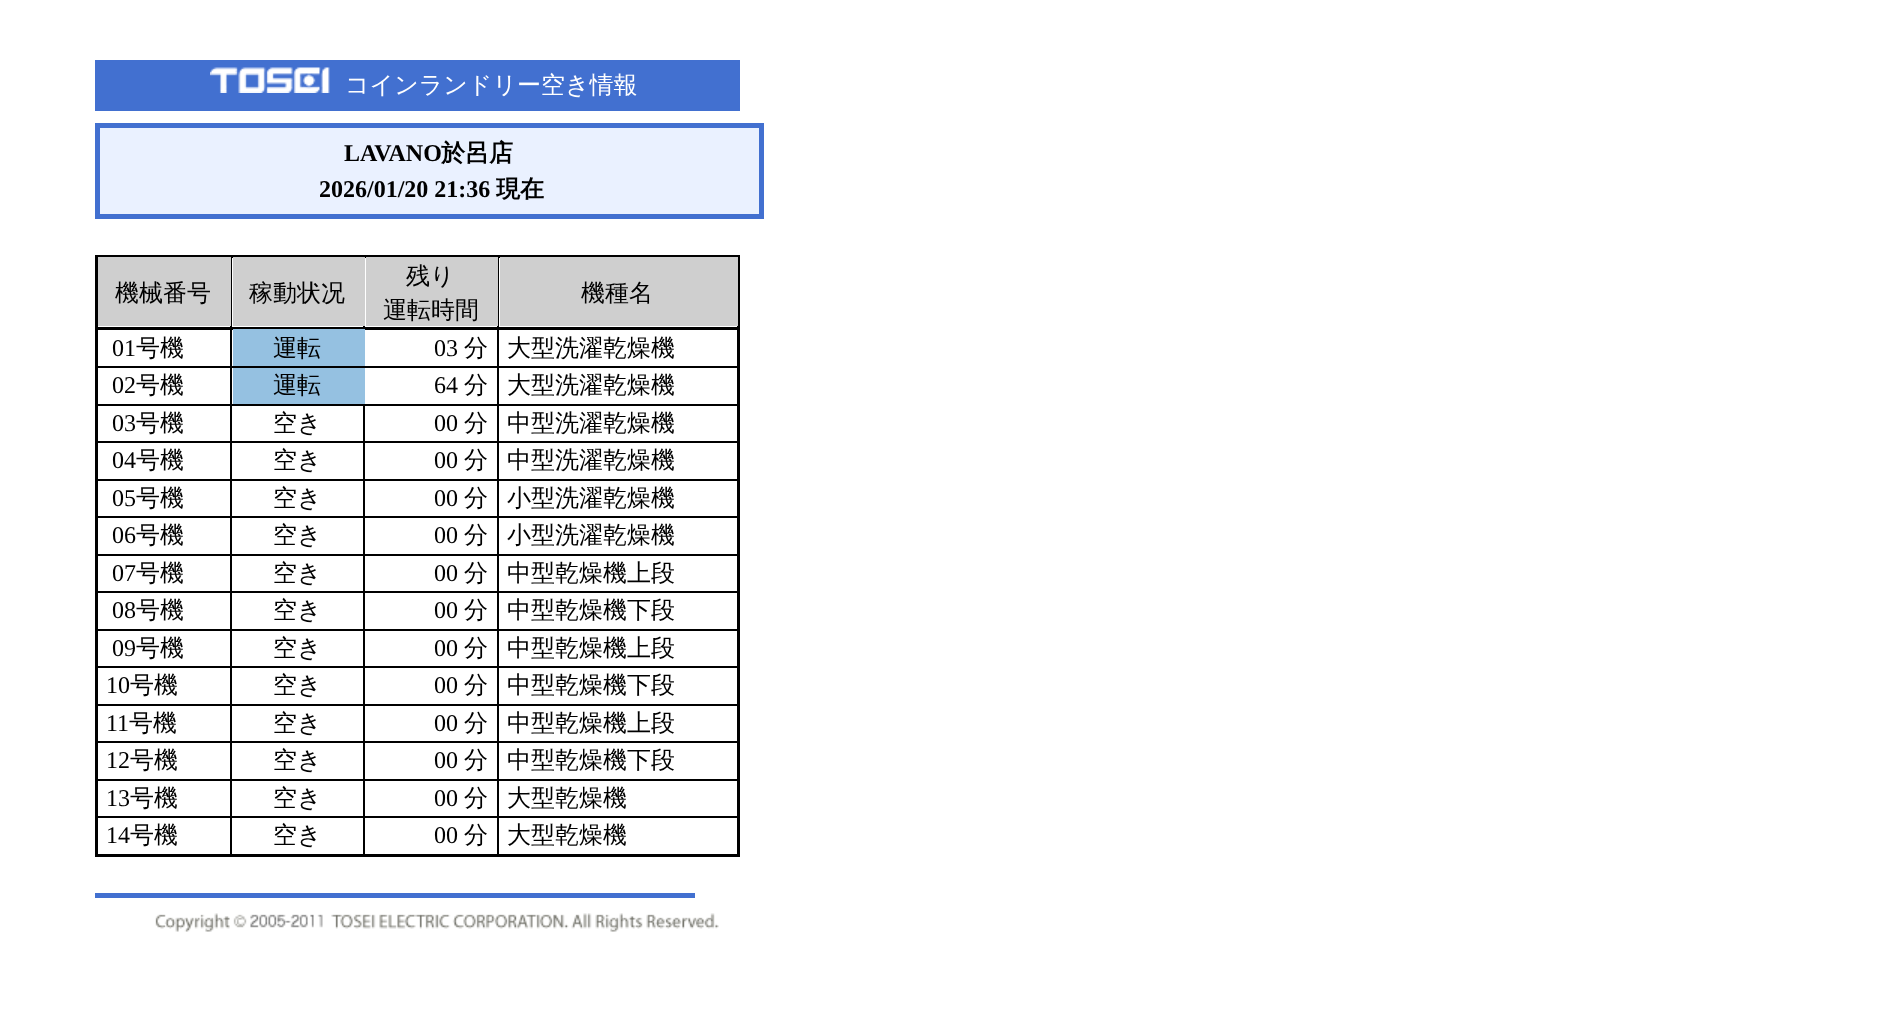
(async () => {
  const canvas = document.querySelector("canvas");
  canvas.width = 1879;
  canvas.height = 1029;
  const ctx = canvas.getContext("2d");
  ctx.miterLimit = 4;
  ctx.fontKerning = "normal";
  async function loadImage(src) {
    const img = new Image();
    img.src = src;
    await img.decode();
    return img;
  }

  ctx.fillStyle = "#ffffff";
  ctx.fillRect(0, 0, 1879, 1029);
  ctx.fillStyle = "#4270d0";
  ctx.fillRect(95, 60, 645, 51);
  ctx.drawImage(await loadImage("img/1.png"), 210, 67, 120, 26);
  ctx.fillStyle = "#eaf1ff";
  ctx.beginPath();
  ctx.rect(97.5, 125.5, 664, 91);
  ctx.fill();
  ctx.strokeStyle = "#4270d0";
  ctx.lineWidth = 5;
  ctx.stroke();
  for (const [x, y, w, h, color] of [
    [497, 816, 2, 41, "#000000"],
    [497, 816, 241, 2, "#000000"],
    [497, 779, 2, 39, "#000000"],
    [497, 779, 241, 2, "#000000"],
    [497, 741, 2, 39, "#000000"],
    [497, 741, 241, 2, "#000000"],
    [497, 704, 2, 39, "#000000"],
    [497, 704, 241, 2, "#000000"],
    [497, 666, 2, 39, "#000000"],
    [497, 666, 241, 2, "#000000"],
    [497, 629, 2, 39, "#000000"],
    [497, 629, 241, 2, "#000000"],
    [497, 591, 2, 39, "#000000"],
    [497, 591, 241, 2, "#000000"],
    [497, 554, 2, 39, "#000000"],
    [497, 554, 241, 2, "#000000"],
    [497, 516, 2, 39, "#000000"],
    [497, 516, 241, 2, "#000000"],
    [497, 479, 2, 39, "#000000"],
    [497, 479, 241, 2, "#000000"],
    [497, 441, 2, 39, "#000000"],
    [497, 441, 241, 2, "#000000"],
    [497, 404, 2, 39, "#000000"],
    [497, 404, 241, 2, "#000000"],
    [497, 366, 2, 39, "#000000"],
    [497, 366, 241, 2, "#000000"],
    [497, 257, 2, 111, "#000000"],
    [363, 816, 2, 41, "#000000"],
    [363, 816, 135, 2, "#000000"],
    [363, 779, 2, 39, "#000000"],
    [363, 779, 135, 2, "#000000"],
    [363, 741, 2, 39, "#000000"],
    [363, 741, 135, 2, "#000000"],
    [363, 704, 2, 39, "#000000"],
    [363, 704, 135, 2, "#000000"],
    [363, 666, 2, 39, "#000000"],
    [363, 666, 135, 2, "#000000"],
    [363, 629, 2, 39, "#000000"],
    [363, 629, 135, 2, "#000000"],
    [363, 591, 2, 39, "#000000"],
    [363, 591, 135, 2, "#000000"],
    [363, 554, 2, 39, "#000000"],
    [363, 554, 135, 2, "#000000"],
    [363, 516, 2, 39, "#000000"],
    [363, 516, 135, 2, "#000000"],
    [363, 479, 2, 39, "#000000"],
    [363, 479, 135, 2, "#000000"],
    [363, 441, 2, 39, "#000000"],
    [363, 441, 135, 2, "#000000"],
    [363, 404, 2, 39, "#000000"],
    [230, 816, 2, 41, "#000000"],
    [230, 816, 135, 2, "#000000"],
    [230, 779, 2, 39, "#000000"],
    [230, 779, 135, 2, "#000000"],
    [230, 741, 2, 39, "#000000"],
    [230, 741, 135, 2, "#000000"],
    [230, 704, 2, 39, "#000000"],
    [230, 704, 135, 2, "#000000"],
    [230, 666, 2, 39, "#000000"],
    [230, 666, 135, 2, "#000000"],
    [230, 629, 2, 39, "#000000"],
    [230, 629, 135, 2, "#000000"],
    [230, 591, 2, 39, "#000000"],
    [230, 591, 135, 2, "#000000"],
    [230, 554, 2, 39, "#000000"],
    [230, 554, 135, 2, "#000000"],
    [230, 516, 2, 39, "#000000"],
    [230, 516, 135, 2, "#000000"],
    [230, 479, 2, 39, "#000000"],
    [230, 479, 135, 2, "#000000"],
    [230, 441, 2, 39, "#000000"],
    [230, 441, 135, 2, "#000000"],
    [230, 404, 2, 39, "#000000"],
    [230, 404, 268, 2, "#000000"],
    [230, 366, 2, 39, "#000000"],
    [230, 366, 268, 2, "#000000"],
    [230, 257, 2, 111, "#000000"],
    [95, 255, 645, 3, "#000000"],
    [737, 255, 3, 602, "#000000"],
    [95, 854, 645, 3, "#000000"],
    [95, 366, 136, 2, "#000000"],
    [95, 404, 136, 2, "#000000"],
    [95, 441, 136, 2, "#000000"],
    [95, 479, 136, 2, "#000000"],
    [95, 516, 136, 2, "#000000"],
    [95, 554, 136, 2, "#000000"],
    [95, 591, 136, 2, "#000000"],
    [95, 629, 136, 2, "#000000"],
    [95, 666, 136, 2, "#000000"],
    [95, 704, 136, 2, "#000000"],
    [95, 741, 136, 2, "#000000"],
    [95, 779, 136, 2, "#000000"],
    [95, 816, 136, 2, "#000000"],
    [95, 255, 3, 602, "#000000"],
    [98, 257, 133, 69, "#cfcfcf"],
    [233, 257, 132, 69, "#cfcfcf"],
    [363, 326, 2, 4, "#000000"],
    [366, 257, 132, 69, "#cfcfcf"],
    [95, 327, 645, 3, "#000000"],
    [500, 257, 238, 69, "#cfcfcf"],
    [233, 329, 132, 37, "#95c1e1"],
    [233, 368, 132, 36, "#95c1e1"],
    [95, 893, 600, 5, "#4270d0"],
  ]) {
    ctx.fillStyle = color;
    ctx.fillRect(x, y, w, h);
  }
  ctx.drawImage(await loadImage("img/2.png"), 155, 913, 564, 19);
  ctx.font = "500 24px WenQuanYi Zen Hei";
  ctx.fillStyle = "#ffffff";
  ctx.fillText("コインランドリー空き情報", 345, 93);
  ctx.font = "bold 24px Liberation Serif";
  ctx.fillStyle = "#000000";
  ctx.fillText("LAVANO", 344, 161);
  ctx.font = "bold 24px WenQuanYi Zen Hei";
  ctx.fillText("於呂店", 441, 161);
  ctx.font = "bold 24px Liberation Serif";
  ctx.fillText("2026/01/20 21:36", 319, 197);
  ctx.font = "bold 24px WenQuanYi Zen Hei";
  ctx.fillText("現在", 496, 197);
  ctx.font = "500 24px WenQuanYi Zen Hei";
  for (const [text, x, y] of [
    ["機械番号", 115, 301],
    ["稼動状况", 249, 301],
    ["残り", 406, 284],
    ["運転時間", 383, 318],
    ["機種名", 581, 301],
  ]) {
    ctx.fillText(text, x, y);
  }
  ctx.font = "24px Liberation Serif";
  ctx.fillText("01", 112, 356);
  ctx.font = "500 24px WenQuanYi Zen Hei";
  ctx.fillText("号機", 136, 356);
  ctx.fillText("運転", 273, 356);
  ctx.font = "24px Liberation Serif";
  ctx.fillText("03", 434, 356);
  ctx.font = "500 24px WenQuanYi Zen Hei";
  ctx.fillText("分", 464, 356);
  ctx.fillText("大型洗濯乾燥機", 507, 356);
  ctx.font = "24px Liberation Serif";
  ctx.fillText("02", 112, 393);
  ctx.font = "500 24px WenQuanYi Zen Hei";
  ctx.fillText("号機", 136, 393);
  ctx.fillText("運転", 273, 393);
  ctx.font = "24px Liberation Serif";
  ctx.fillText("64", 434, 393);
  ctx.font = "500 24px WenQuanYi Zen Hei";
  ctx.fillText("分", 464, 393);
  ctx.fillText("大型洗濯乾燥機", 507, 393);
  ctx.font = "24px Liberation Serif";
  ctx.fillText("03", 112, 431);
  ctx.font = "500 24px WenQuanYi Zen Hei";
  ctx.fillText("号機", 136, 431);
  ctx.fillText("空き", 273, 431);
  ctx.font = "24px Liberation Serif";
  ctx.fillText("00", 434, 431);
  ctx.font = "500 24px WenQuanYi Zen Hei";
  ctx.fillText("分", 464, 431);
  ctx.fillText("中型洗濯乾燥機", 507, 431);
  ctx.font = "24px Liberation Serif";
  ctx.fillText("04", 112, 468);
  ctx.font = "500 24px WenQuanYi Zen Hei";
  ctx.fillText("号機", 136, 468);
  ctx.fillText("空き", 273, 468);
  ctx.font = "24px Liberation Serif";
  ctx.fillText("00", 434, 468);
  ctx.font = "500 24px WenQuanYi Zen Hei";
  ctx.fillText("分", 464, 468);
  ctx.fillText("中型洗濯乾燥機", 507, 468);
  ctx.font = "24px Liberation Serif";
  ctx.fillText("05", 112, 506);
  ctx.font = "500 24px WenQuanYi Zen Hei";
  ctx.fillText("号機", 136, 506);
  ctx.fillText("空き", 273, 506);
  ctx.font = "24px Liberation Serif";
  ctx.fillText("00", 434, 506);
  ctx.font = "500 24px WenQuanYi Zen Hei";
  ctx.fillText("分", 464, 506);
  ctx.fillText("小型洗濯乾燥機", 507, 506);
  ctx.font = "24px Liberation Serif";
  ctx.fillText("06", 112, 543);
  ctx.font = "500 24px WenQuanYi Zen Hei";
  ctx.fillText("号機", 136, 543);
  ctx.fillText("空き", 273, 543);
  ctx.font = "24px Liberation Serif";
  ctx.fillText("00", 434, 543);
  ctx.font = "500 24px WenQuanYi Zen Hei";
  ctx.fillText("分", 464, 543);
  ctx.fillText("小型洗濯乾燥機", 507, 543);
  ctx.font = "24px Liberation Serif";
  ctx.fillText("07", 112, 581);
  ctx.font = "500 24px WenQuanYi Zen Hei";
  ctx.fillText("号機", 136, 581);
  ctx.fillText("空き", 273, 581);
  ctx.font = "24px Liberation Serif";
  ctx.fillText("00", 434, 581);
  ctx.font = "500 24px WenQuanYi Zen Hei";
  ctx.fillText("分", 464, 581);
  ctx.fillText("中型乾燥機上段", 507, 581);
  ctx.font = "24px Liberation Serif";
  ctx.fillText("08", 112, 618);
  ctx.font = "500 24px WenQuanYi Zen Hei";
  ctx.fillText("号機", 136, 618);
  ctx.fillText("空き", 273, 618);
  ctx.font = "24px Liberation Serif";
  ctx.fillText("00", 434, 618);
  ctx.font = "500 24px WenQuanYi Zen Hei";
  ctx.fillText("分", 464, 618);
  ctx.fillText("中型乾燥機下段", 507, 618);
  ctx.font = "24px Liberation Serif";
  ctx.fillText("09", 112, 656);
  ctx.font = "500 24px WenQuanYi Zen Hei";
  ctx.fillText("号機", 136, 656);
  ctx.fillText("空き", 273, 656);
  ctx.font = "24px Liberation Serif";
  ctx.fillText("00", 434, 656);
  ctx.font = "500 24px WenQuanYi Zen Hei";
  ctx.fillText("分", 464, 656);
  ctx.fillText("中型乾燥機上段", 507, 656);
  ctx.font = "24px Liberation Serif";
  ctx.fillText("10", 106, 693);
  ctx.font = "500 24px WenQuanYi Zen Hei";
  ctx.fillText("号機", 130, 693);
  ctx.fillText("空き", 273, 693);
  ctx.font = "24px Liberation Serif";
  ctx.fillText("00", 434, 693);
  ctx.font = "500 24px WenQuanYi Zen Hei";
  ctx.fillText("分", 464, 693);
  ctx.fillText("中型乾燥機下段", 507, 693);
  ctx.font = "24px Liberation Serif";
  ctx.fillText("11", 106, 731);
  ctx.font = "500 24px WenQuanYi Zen Hei";
  ctx.fillText("号機", 129, 731);
  ctx.fillText("空き", 273, 731);
  ctx.font = "24px Liberation Serif";
  ctx.fillText("00", 434, 731);
  ctx.font = "500 24px WenQuanYi Zen Hei";
  ctx.fillText("分", 464, 731);
  ctx.fillText("中型乾燥機上段", 507, 731);
  ctx.font = "24px Liberation Serif";
  ctx.fillText("12", 106, 768);
  ctx.font = "500 24px WenQuanYi Zen Hei";
  ctx.fillText("号機", 130, 768);
  ctx.fillText("空き", 273, 768);
  ctx.font = "24px Liberation Serif";
  ctx.fillText("00", 434, 768);
  ctx.font = "500 24px WenQuanYi Zen Hei";
  ctx.fillText("分", 464, 768);
  ctx.fillText("中型乾燥機下段", 507, 768);
  ctx.font = "24px Liberation Serif";
  ctx.fillText("13", 106, 806);
  ctx.font = "500 24px WenQuanYi Zen Hei";
  ctx.fillText("号機", 130, 806);
  ctx.fillText("空き", 273, 806);
  ctx.font = "24px Liberation Serif";
  ctx.fillText("00", 434, 806);
  ctx.font = "500 24px WenQuanYi Zen Hei";
  ctx.fillText("分", 464, 806);
  ctx.fillText("大型乾燥機", 507, 806);
  ctx.font = "24px Liberation Serif";
  ctx.fillText("14", 106, 843);
  ctx.font = "500 24px WenQuanYi Zen Hei";
  ctx.fillText("号機", 130, 843);
  ctx.fillText("空き", 273, 843);
  ctx.font = "24px Liberation Serif";
  ctx.fillText("00", 434, 843);
  ctx.font = "500 24px WenQuanYi Zen Hei";
  ctx.fillText("分", 464, 843);
  ctx.fillText("大型乾燥機", 507, 843);
})();
